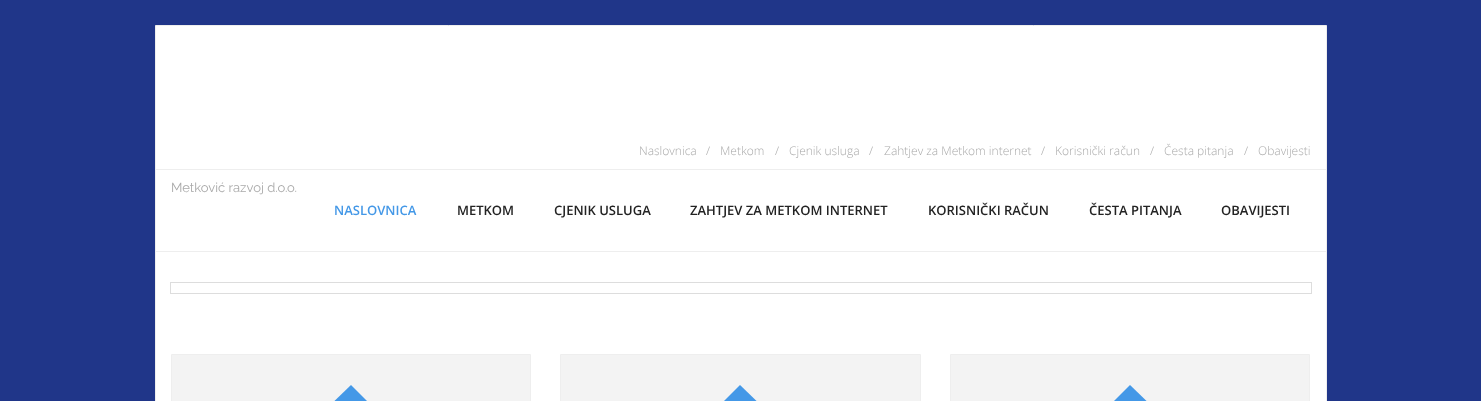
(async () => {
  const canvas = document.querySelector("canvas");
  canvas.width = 1481;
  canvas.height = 401;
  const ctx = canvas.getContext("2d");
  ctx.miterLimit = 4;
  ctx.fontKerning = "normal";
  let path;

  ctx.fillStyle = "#203689";
  ctx.fillRect(0, 0, 1481, 401);
  ctx.fillStyle = "#ffffff";
  ctx.beginPath();
  ctx.rect(155.5, 25.5, 1171, 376);
  ctx.fill();
  ctx.strokeStyle = "#eeeeee";
  ctx.stroke();
  for (const [x, y, w, h, color] of [
    [156, 169, 1170, 1, "#eeeeee"],
    [156, 251, 1170, 1, "#eeeeee"],
    [170, 282, 1142, 12, "#dddddd"],
    [171, 283, 1140, 10, "#ffffff"],
  ]) {
    ctx.fillStyle = color;
    ctx.fillRect(x, y, w, h);
  }
  ctx.fillStyle = "#f3f3f3";
  ctx.beginPath();
  ctx.rect(171.5, 354.5, 359, 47);
  ctx.fill();
  ctx.stroke();
  ctx.fillStyle = "#4498e7";
  path = new Path2D("M351 385L379 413L351 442L322 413Z");
  ctx.fill(path);
  ctx.fillStyle = "#f3f3f3";
  ctx.beginPath();
  ctx.rect(560.5, 354.5, 360, 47);
  ctx.fill();
  ctx.stroke();
  ctx.fillStyle = "#4498e7";
  path = new Path2D("M740 385L769 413L740 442L712 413Z");
  ctx.fill(path);
  ctx.fillStyle = "#f3f3f3";
  ctx.beginPath();
  ctx.rect(950.5, 354.5, 359, 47);
  ctx.fill();
  ctx.stroke();
  ctx.fillStyle = "#4498e7";
  path = new Path2D("M1130 385L1159 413L1130 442L1102 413Z");
  ctx.fill(path);
  ctx.font = "300 12px Open Sans";
  ctx.fillStyle = "#aaaaaa";
  for (const [text, x, y] of [
    ["Naslovnica", 639, 155],
    ["/", 706, 155],
    ["Metkom", 720, 155],
    ["/", 775, 155],
    ["Cjenik usluga", 789, 155],
    ["/", 869, 155],
    ["Zahtjev za Metkom internet", 884, 155],
    ["/", 1041, 155],
    ["Korisnički račun", 1055, 155],
    ["/", 1150, 155],
    ["Česta pitanja", 1164, 155],
    ["/", 1244, 155],
    ["Obavijesti", 1258, 155],
  ]) {
    ctx.fillText(text, x, y);
  }
  ctx.font = "13px Raleway";
  ctx.fillText("Metković razvoj d.o.o.", 171, 192);
  ctx.font = "600 13px Open Sans";
  ctx.fillStyle = "#4498e7";
  ctx.fillText("NASLOVNICA", 334, 215);
  ctx.fillStyle = "#232323";
  for (const [text, x, y] of [
    ["METKOM", 457, 215],
    ["CJENIK USLUGA", 554, 215],
    ["ZAHTJEV ZA METKOM INTERNET", 690, 215],
    ["KORISNIČKI RAČUN", 928, 215],
    ["ČESTA PITANJA", 1089, 215],
    ["OBAVIJESTI", 1221, 215],
  ]) {
    ctx.fillText(text, x, y);
  }
})();
